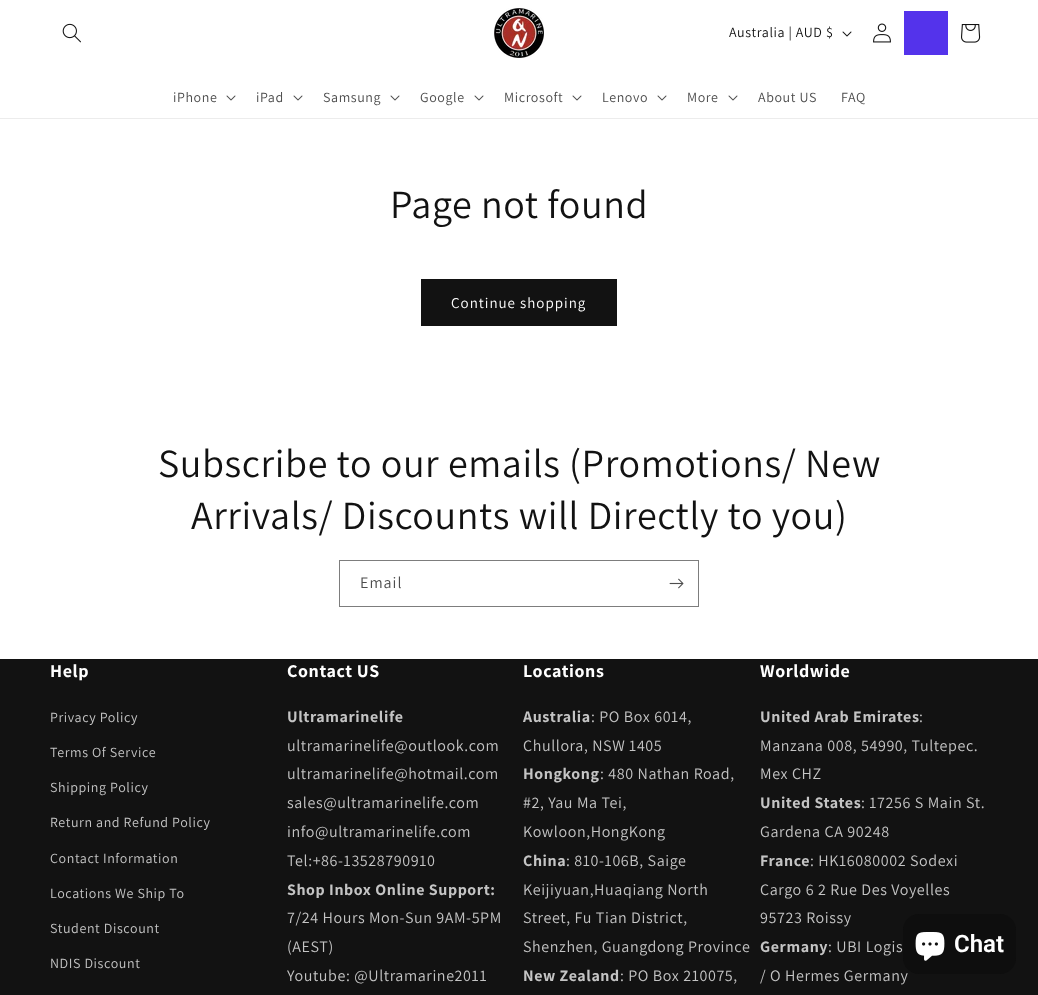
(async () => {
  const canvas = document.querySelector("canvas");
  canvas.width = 1038;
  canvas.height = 995;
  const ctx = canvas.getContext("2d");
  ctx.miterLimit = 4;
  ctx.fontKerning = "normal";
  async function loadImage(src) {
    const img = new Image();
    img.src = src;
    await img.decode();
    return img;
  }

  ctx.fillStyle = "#ffffff";
  ctx.fillRect(0, 0, 1038, 995);
  ctx.fillStyle = "#ececec";
  ctx.fillRect(0, 118, 1038, 1);
  ctx.drawImage(await loadImage("img/1.png"), 62, 23, 19, 20);
  ctx.drawImage(await loadImage("img/2.png"), 494, 8, 50, 50);
  ctx.drawImage(await loadImage("img/3.png"), 842, 31, 10, 6);
  ctx.drawImage(await loadImage("img/4.png"), 873, 23, 18, 20);
  ctx.fillStyle = "#5433eb";
  ctx.fillRect(904, 11, 44, 44);
  ctx.drawImage(await loadImage("img/5.png"), 961, 24, 20, 19);
  ctx.drawImage(await loadImage("img/6.png"), 226, 95, 10, 6);
  ctx.drawImage(await loadImage("img/6.png"), 293, 95, 10, 6);
  ctx.drawImage(await loadImage("img/6.png"), 390, 95, 10, 6);
  ctx.drawImage(await loadImage("img/6.png"), 474, 95, 10, 6);
  ctx.drawImage(await loadImage("img/6.png"), 572, 95, 10, 6);
  ctx.drawImage(await loadImage("img/6.png"), 657, 95, 10, 6);
  ctx.drawImage(await loadImage("img/6.png"), 728, 95, 10, 6);
  ctx.fillStyle = "#121212";
  ctx.fillRect(421, 279, 196, 47);
  ctx.strokeStyle = "#7d7d7d";
  ctx.strokeRect(339.5, 560.5, 359, 46);
  ctx.drawImage(await loadImage("img/7.png"), 669, 578, 15, 11);
  ctx.fillRect(0, 659, 1038, 336);
  ctx.letterSpacing = "0.6px";
  ctx.font = "14px Assistant";
  ctx.fillText("Australia | AUD $", 729, 37);
  ctx.fillStyle = "#4d4d4d";
  for (const [text, x, y] of [
    ["iPhone", 173, 102],
    ["iPad", 256, 102],
    ["Samsung", 323, 102],
    ["Google", 420, 102],
    ["Microsoft", 504, 102],
    ["Lenovo", 602, 102],
    ["More", 687, 102],
    ["About US", 758, 102],
    ["FAQ", 841, 102],
  ]) {
    ctx.fillText(text, x, y);
  }
  ctx.font = "40px Assistant";
  ctx.fillStyle = "#121212";
  ctx.fillText("Page not found", 390, 218);
  ctx.letterSpacing = "1px";
  ctx.font = "15px Assistant";
  ctx.fillStyle = "#ffffff";
  ctx.fillText("Continue shopping", 451, 308);
  ctx.letterSpacing = "0.6px";
  ctx.font = "40px Assistant";
  ctx.fillStyle = "#121212";
  ctx.fillText("Subscribe to our emails (Promotions/ New", 158, 477);
  ctx.fillText("Arrivals/ Discounts will Directly to you)", 191, 529);
  ctx.letterSpacing = "1px";
  ctx.font = "16px Assistant";
  ctx.fillStyle = "#4d4d4d";
  ctx.fillText("Email", 360, 588);
  ctx.letterSpacing = "0.6px";
  ctx.font = "bold 18px Assistant";
  ctx.fillStyle = "#ffffff";
  ctx.fillText("Help", 50, 677);
  ctx.font = "14px Assistant";
  ctx.fillStyle = "#c4c4c4";
  for (const [text, x, y] of [
    ["Privacy Policy", 50, 722],
    ["Terms Of Service", 50, 757],
    ["Shipping Policy", 50, 792],
    ["Return and Refund Policy", 50, 827],
    ["Contact Information", 50, 863],
    ["Locations We Ship To", 50, 898],
    ["Student Discount", 50, 933],
    ["NDIS Discount", 50, 968],
  ]) {
    ctx.fillText(text, x, y);
  }
  ctx.font = "bold 18px Assistant";
  ctx.fillStyle = "#ffffff";
  ctx.fillText("Contact US", 287, 677);
  ctx.font = "bold 16px Assistant";
  ctx.fillStyle = "#c4c4c4";
  ctx.fillText("Ultramarinelife", 287, 722);
  ctx.font = "16px Assistant";
  for (const [text, x, y] of [
    ["ultramarinelife@outlook.com", 287, 751],
    ["ultramarinelife@hotmail.com", 287, 779],
    ["sales@ultramarinelife.com", 287, 808],
    ["info@ultramarinelife.com", 287, 837],
    ["Tel:+86-13528790910", 287, 866],
  ]) {
    ctx.fillText(text, x, y);
  }
  ctx.font = "bold 16px Assistant";
  ctx.fillText("Shop Inbox Online Support:", 287, 895);
  ctx.font = "16px Assistant";
  for (const [text, x, y] of [
    ["7/24 Hours Mon-Sun 9AM-5PM", 287, 923],
    ["(AEST)", 287, 952],
    ["Youtube: @Ultramarine2011", 287, 981],
  ]) {
    ctx.fillText(text, x, y);
  }
  ctx.font = "bold 18px Assistant";
  ctx.fillStyle = "#ffffff";
  ctx.fillText("Locations", 523, 677);
  ctx.font = "bold 16px Assistant";
  ctx.fillStyle = "#c4c4c4";
  ctx.fillText("Australia", 523, 722);
  ctx.font = "16px Assistant";
  ctx.fillText(": PO Box 6014,", 591, 722);
  ctx.fillText("Chullora, NSW 1405", 523, 751);
  ctx.font = "bold 16px Assistant";
  ctx.fillText("Hongkong", 523, 779);
  ctx.font = "16px Assistant";
  for (const [text, x, y] of [
    [": 480 Nathan Road,", 600, 779],
    ["#2, Yau Ma Tei,", 523, 808],
    ["Kowloon,HongKong", 523, 837],
  ]) {
    ctx.fillText(text, x, y);
  }
  ctx.font = "bold 16px Assistant";
  ctx.fillText("China", 523, 866);
  ctx.font = "16px Assistant";
  for (const [text, x, y] of [
    [": 810-106B, Saige", 566, 866],
    ["Keijiyuan,Huaqiang North", 523, 895],
    ["Street, Fu Tian District,", 523, 923],
    ["Shenzhen, Guangdong Province", 523, 952],
  ]) {
    ctx.fillText(text, x, y);
  }
  ctx.font = "bold 16px Assistant";
  ctx.fillText("New Zealand", 523, 981);
  ctx.font = "16px Assistant";
  ctx.fillText(": PO Box 210075,", 620, 981);
  ctx.font = "bold 18px Assistant";
  ctx.fillStyle = "#ffffff";
  ctx.fillText("Worldwide", 760, 677);
  ctx.font = "bold 16px Assistant";
  ctx.fillStyle = "#c4c4c4";
  ctx.fillText("United Arab Emirates", 760, 722);
  ctx.font = "16px Assistant";
  for (const [text, x, y] of [
    [":", 919, 722],
    ["Manzana 008, 54990, Tultepec.", 760, 751],
    ["Mex CHZ", 760, 779],
  ]) {
    ctx.fillText(text, x, y);
  }
  ctx.font = "bold 16px Assistant";
  ctx.fillText("United States", 760, 808);
  ctx.font = "16px Assistant";
  ctx.fillText(": 17256 S Main St.", 861, 808);
  ctx.fillText("Gardena CA 90248", 760, 837);
  ctx.font = "bold 16px Assistant";
  ctx.fillText("France", 760, 866);
  ctx.font = "16px Assistant";
  for (const [text, x, y] of [
    [": HK16080002 Sodexi", 810, 866],
    ["Cargo 6 2 Rue Des Voyelles", 760, 895],
    ["95723 Roissy", 760, 923],
  ]) {
    ctx.fillText(text, x, y);
  }
  ctx.font = "bold 16px Assistant";
  ctx.fillText("Germany", 760, 952);
  ctx.font = "16px Assistant";
  ctx.fillText(": UBI Logis", 828, 952);
  ctx.fillText("/ O Hermes Germany", 760, 981);
  ctx.fillStyle = "#0e0e0e";
  ctx.beginPath();
  ctx.roundRect(903, 914, 113, 60, 16);
  ctx.fill();
  ctx.drawImage(await loadImage("img/8.png"), 915, 932, 30, 29);
  ctx.letterSpacing = "0px";
  ctx.font = "600 24px Roboto";
  ctx.fillStyle = "#ffffff";
  ctx.fillText("Chat", 954, 952);
})();
